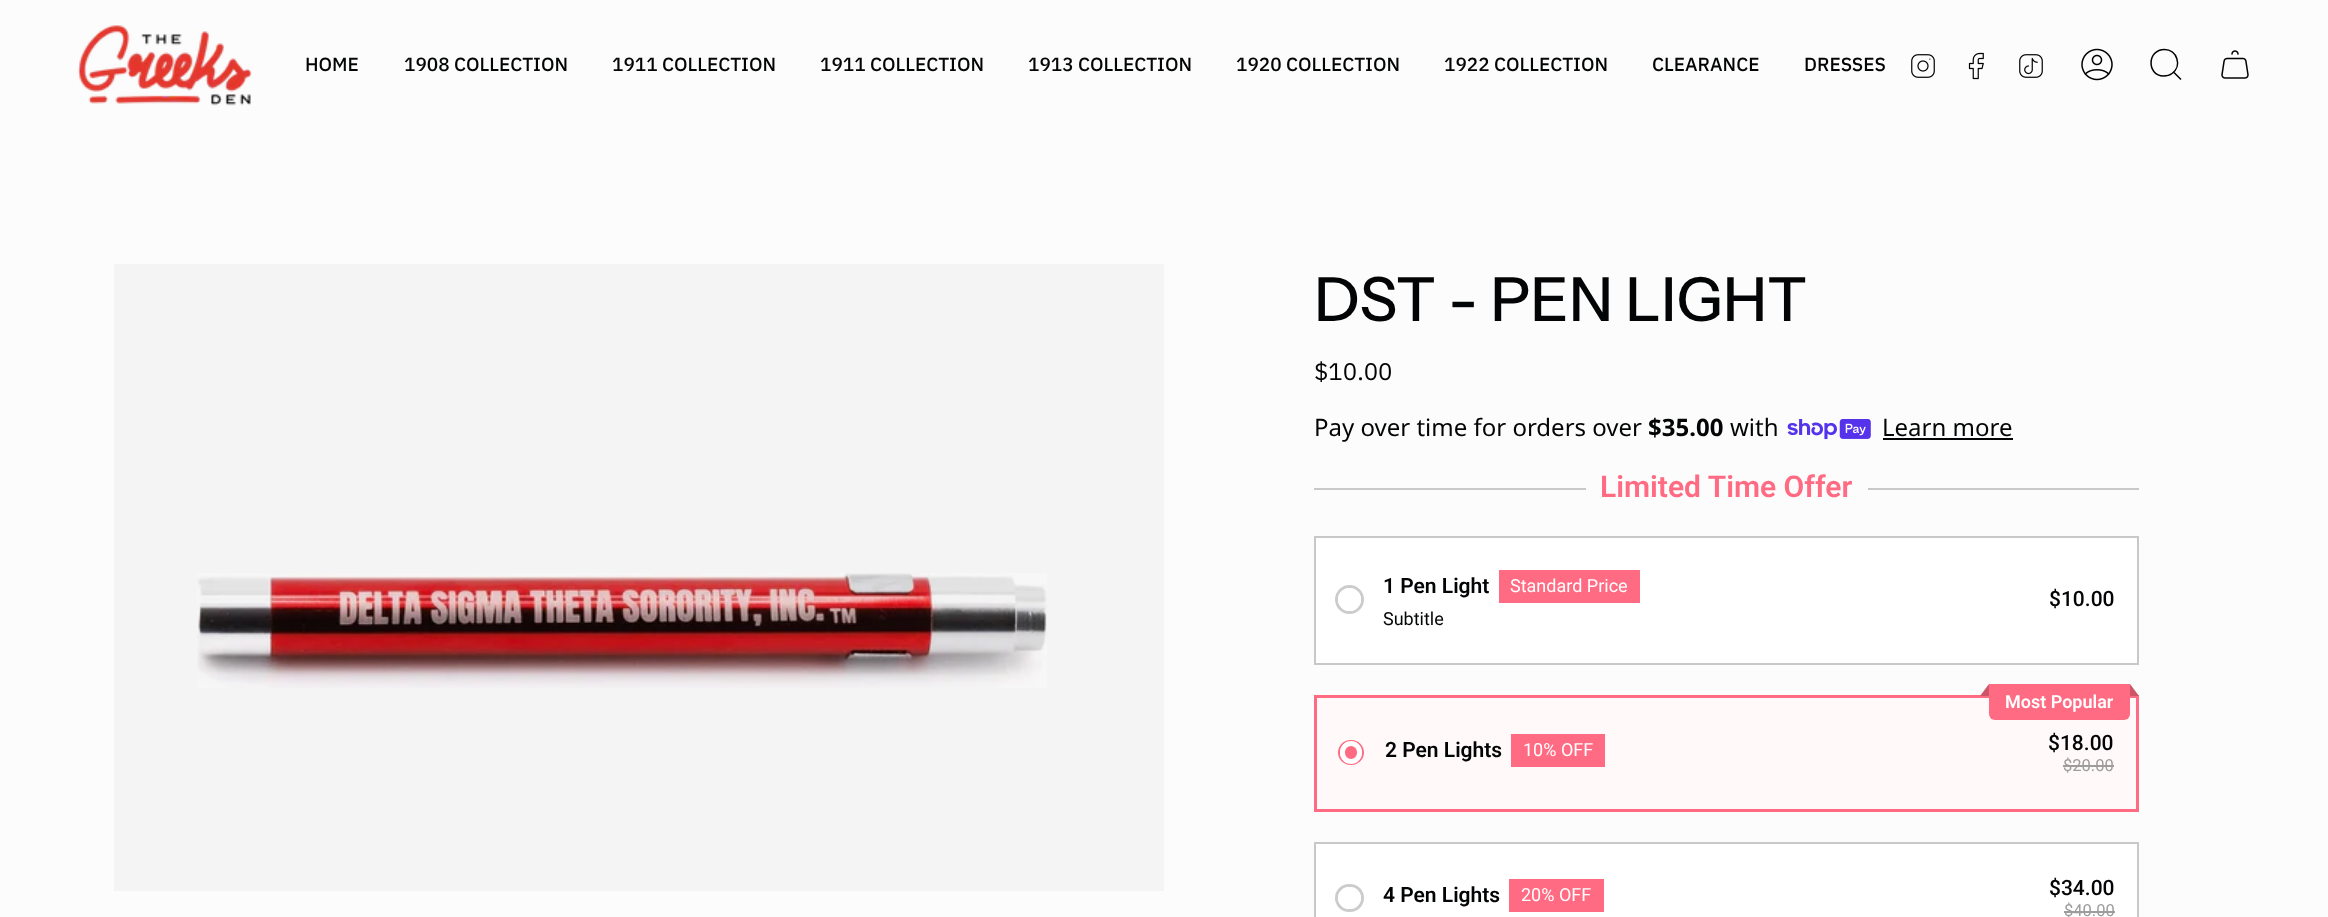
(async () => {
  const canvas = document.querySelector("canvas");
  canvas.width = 2328;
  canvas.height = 917;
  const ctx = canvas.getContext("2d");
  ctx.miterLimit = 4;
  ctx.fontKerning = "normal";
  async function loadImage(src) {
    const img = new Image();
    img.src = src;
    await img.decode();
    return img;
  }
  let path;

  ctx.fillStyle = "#fcfcfc";
  ctx.fillRect(0, 0, 2328, 917);
  ctx.drawImage(await loadImage("img/1.png"), 78, 25, 174, 81);
  ctx.drawImage(await loadImage("img/2.png"), 1911, 54, 24, 24);
  ctx.drawImage(await loadImage("img/3.png"), 1968, 52, 16, 28);
  ctx.drawImage(await loadImage("img/4.png"), 2019, 54, 24, 24);
  ctx.drawImage(await loadImage("img/5.png"), 2081, 48, 32, 33);
  path = new Path2D("M2164.5 49.5C2177 49.5 2182.5 66 2172 73.5C2169.5 75.5 2166.5 76 2163.5 76C2146.5 75.5 2147 49.5 2164.5 49.5ZM2173.5 72L2181 79.5");
  ctx.strokeStyle = "#000000";
  ctx.lineWidth = 1.5;
  ctx.stroke(path);
  ctx.drawImage(await loadImage("img/6.png"), 2221, 50, 28, 29);
  ctx.fillStyle = "#f4f4f4";
  ctx.fillRect(114, 264, 1050, 627);
  ctx.drawImage(await loadImage("img/7.png"), 197, 573, 850, 115);
  ctx.drawImage(await loadImage("img/8.png"), 1787, 419, 84, 21);
  for (const [x, y, w, h, color] of [
    [1883, 438, 130, 2, "#030405"],
    [1314, 488, 272, 2, "#c8c8c8"],
    [1868, 488, 271, 2, "#c8c8c8"],
  ]) {
    ctx.fillStyle = color;
    ctx.fillRect(x, y, w, h);
  }
  ctx.fillStyle = "#ffffff";
  ctx.beginPath();
  ctx.rect(1315, 537, 823, 127);
  ctx.fill();
  ctx.strokeStyle = "#c8c8c8";
  ctx.lineWidth = 2;
  ctx.stroke();
  ctx.beginPath();
  ctx.arc(1349.5, 599.5, 13, 0, Math.PI * 2);
  ctx.strokeStyle = "#cccccc";
  ctx.lineWidth = 3;
  ctx.stroke();
  ctx.beginPath();
  ctx.arc(1349.5, 599.5, 9, 0, Math.PI * 2);
  ctx.fill();
  ctx.strokeStyle = "#ffffff";
  ctx.lineWidth = 5;
  ctx.stroke();
  ctx.fillStyle = "#ff6b82";
  ctx.fillRect(1499, 570, 141, 33);
  ctx.fillStyle = "#fff9fa";
  ctx.beginPath();
  ctx.rect(1315.5, 696.5, 822, 114);
  ctx.fill();
  ctx.strokeStyle = "#ff6b82";
  ctx.lineWidth = 3;
  ctx.stroke();
  ctx.beginPath();
  ctx.roundRect(1339, 741, 24, 23, 11.5);
  ctx.lineWidth = 2;
  ctx.stroke();
  ctx.fillStyle = "#ff6b82";
  ctx.beginPath();
  ctx.roundRect(1342.5, 743.5, 17, 18, 8.5);
  ctx.fill();
  ctx.strokeStyle = "#ffffff";
  ctx.lineWidth = 5;
  ctx.stroke();
  ctx.fillRect(1511, 734, 94, 33);
  ctx.beginPath();
  ctx.roundRect(1989, 684, 141, 36, [0, 0, 6, 6]);
  ctx.fill();
  ctx.fillStyle = "#cc5668";
  path = new Path2D("M1989 696H1980L1989 684Z");
  ctx.fill(path);
  path = new Path2D("M2139 696H2130V684Z");
  ctx.fill(path);
  ctx.fillStyle = "#9d9d9d";
  ctx.fillRect(2063, 765, 51, 2);
  ctx.fillStyle = "#ffffff";
  ctx.beginPath();
  ctx.rect(1315, 843, 823, 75);
  ctx.fill();
  ctx.strokeStyle = "#c8c8c8";
  ctx.lineWidth = 2;
  ctx.stroke();
  ctx.beginPath();
  ctx.roundRect(1336.5, 885.5, 26, 25, 12.5);
  ctx.strokeStyle = "#cccccc";
  ctx.lineWidth = 3;
  ctx.stroke();
  ctx.beginPath();
  ctx.roundRect(1340.5, 889.5, 18, 17, 8.5);
  ctx.fill();
  ctx.strokeStyle = "#ffffff";
  ctx.lineWidth = 5;
  ctx.stroke();
  ctx.fillStyle = "#ff6b82";
  ctx.fillRect(1509, 879, 95, 33);
  ctx.fillStyle = "#9d9d9d";
  ctx.fillRect(2064, 911, 51, 2);
  ctx.font = "500 19px IBM Plex Sans";
  ctx.fillStyle = "#030405";
  for (const [text, x, y] of [
    ["HOME", 305, 71],
    ["1908 COLLECTION", 404, 71],
    ["1911 COLLECTION", 612, 71],
    ["1911 COLLECTION", 820, 71],
    ["1913 COLLECTION", 1028, 71],
    ["1920 COLLECTION", 1236, 71],
    ["1922 COLLECTION", 1444, 71],
    ["CLEARANCE", 1652, 71],
    ["DRESSES", 1804, 71],
  ]) {
    ctx.fillText(text, x, y);
  }
  ctx.font = "500 60.75px Instrument Sans";
  ctx.fillText("DST - PEN LIGHT", 1314, 321);
  ctx.font = "24px IBM Plex Sans";
  ctx.fillText("$10.00", 1314, 380);
  ctx.font = "24px Noto Sans";
  ctx.fillText("Pay over time for orders over", 1314, 436);
  ctx.font = "bold 24px Noto Sans";
  ctx.fillText("$35.00", 1648, 436);
  ctx.font = "24px Noto Sans";
  ctx.fillText("with", 1730, 436);
  ctx.fillText("Learn more", 1882, 436);
  ctx.font = "600 30px Roboto";
  ctx.fillStyle = "#ff6b82";
  ctx.fillText("Limited Time Offer", 1600, 497);
  ctx.font = "600 21px Roboto";
  ctx.fillStyle = "#030405";
  ctx.fillText("1 Pen Light", 1383, 593);
  ctx.font = "18px Roboto";
  ctx.fillStyle = "#ffffff";
  ctx.fillText("Standard Price", 1510, 592);
  ctx.fillStyle = "#030405";
  ctx.fillText("Subtitle", 1383, 625);
  ctx.font = "500 21px Roboto";
  ctx.fillText("$10.00", 2049, 606);
  ctx.font = "600 21px Roboto";
  ctx.fillText("2 Pen Lights", 1385, 757);
  ctx.font = "18px Roboto";
  ctx.fillStyle = "#ffffff";
  ctx.fillText("10% OFF", 1523, 756);
  ctx.font = "600 18px Roboto";
  ctx.fillText("Most Popular", 2005, 708);
  ctx.font = "500 21px Roboto";
  ctx.fillStyle = "#030405";
  ctx.fillText("$18.00", 2048, 750);
  ctx.font = "16.5px Roboto";
  ctx.fillStyle = "#9d9d9d";
  ctx.fillText("$20.00", 2063, 771);
  ctx.font = "600 21px Roboto";
  ctx.fillStyle = "#030405";
  ctx.fillText("4 Pen Lights", 1383, 902);
  ctx.font = "18px Roboto";
  ctx.fillStyle = "#ffffff";
  ctx.fillText("20% OFF", 1521, 901);
  ctx.font = "500 21px Roboto";
  ctx.fillStyle = "#030405";
  ctx.fillText("$34.00", 2049, 895);
  ctx.font = "16.5px Roboto";
  ctx.fillStyle = "#9d9d9d";
  ctx.fillText("$40.00", 2064, 916);
})();
